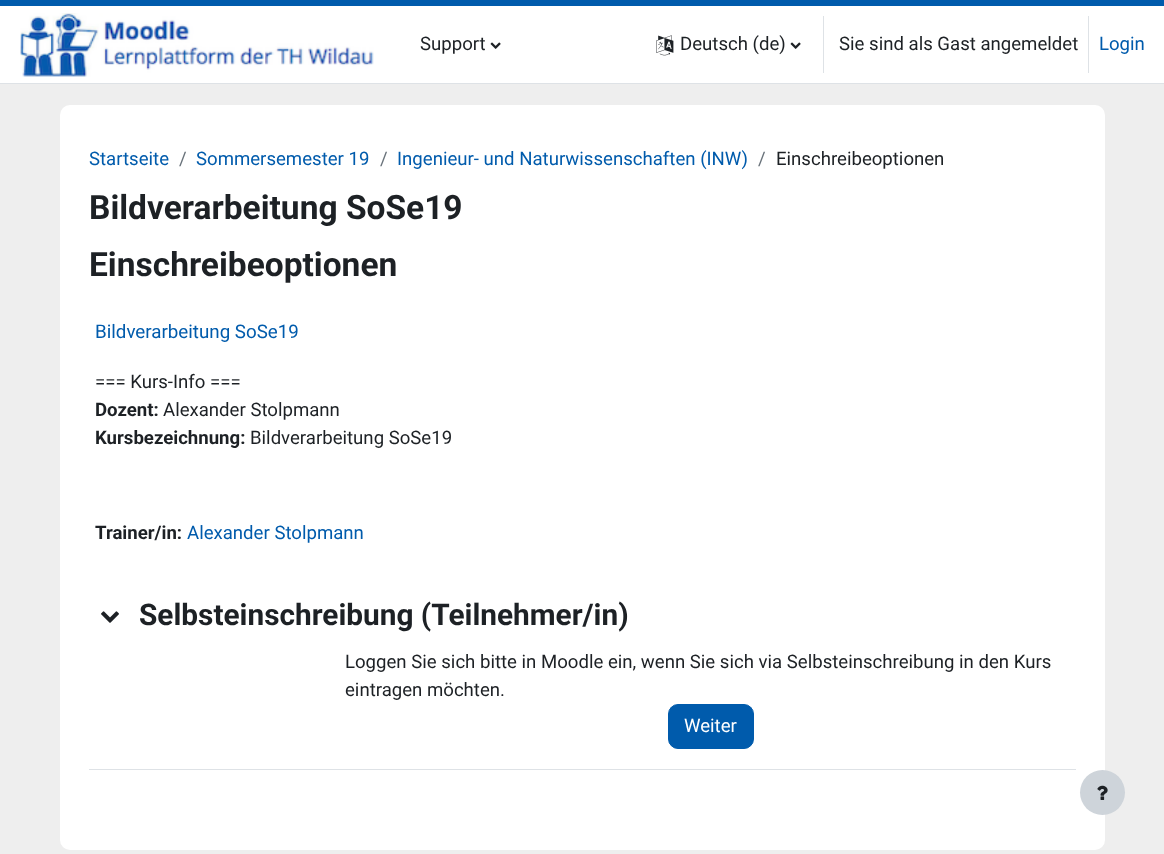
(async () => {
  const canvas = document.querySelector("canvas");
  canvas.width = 1164;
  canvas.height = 854;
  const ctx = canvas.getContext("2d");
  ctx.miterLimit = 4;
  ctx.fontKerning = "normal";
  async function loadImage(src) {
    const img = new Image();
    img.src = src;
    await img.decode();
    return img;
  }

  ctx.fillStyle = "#eeeeee";
  ctx.fillRect(0, 0, 1164, 854);
  for (const [x, y, w, h, color] of [
    [0, 6, 1164, 77, "#ffffff"],
    [0, 0, 1164, 6, "#005bac"],
    [0, 83, 1164, 1, "#dee2e6"],
  ]) {
    ctx.fillStyle = color;
    ctx.fillRect(x, y, w, h);
  }
  ctx.drawImage(await loadImage("img/1.png"), 20, 13, 354, 64);
  ctx.drawImage(await loadImage("img/2.png"), 490, 42, 11, 7);
  ctx.drawImage(await loadImage("img/3.png"), 656, 35, 18, 21);
  ctx.drawImage(await loadImage("img/2.png"), 790, 42, 11, 7);
  ctx.fillRect(823, 16, 1, 57);
  ctx.fillRect(1088, 16, 1, 57);
  ctx.fillStyle = "#ffffff";
  ctx.beginPath();
  ctx.roundRect(60, 105, 1045, 745, 10);
  ctx.fill();
  ctx.fillStyle = "#dee2e6";
  ctx.fillRect(89, 769, 987, 1);
  ctx.drawImage(await loadImage("img/4.png"), 101, 611, 18, 12);
  ctx.fillStyle = "#005bac";
  ctx.beginPath();
  ctx.roundRect(668.5, 704.5, 85, 44, 9.5);
  ctx.fill();
  ctx.strokeStyle = "#005bac";
  ctx.stroke();
  ctx.fillStyle = "#ced4da";
  ctx.beginPath();
  ctx.arc(1102.5, 792.5, 22.5, 0, Math.PI * 2);
  ctx.fill();
  ctx.drawImage(await loadImage("img/5.png"), 1097, 785, 11, 15);
  ctx.font = "18.6px Roboto";
  ctx.fillStyle = "#1d2125";
  for (const [text, x, y] of [
    ["Support", 420, 50],
    ["Deutsch (de)", 680, 50],
    ["Sie sind als Gast angemeldet", 839, 50],
  ]) {
    ctx.fillText(text, x, y);
  }
  ctx.fillStyle = "#005bac";
  ctx.fillText("Login", 1099, 50);
  ctx.fillText("Startseite", 89, 165);
  ctx.fillStyle = "#6a737b";
  ctx.fillText("/", 179, 165);
  ctx.fillStyle = "#005bac";
  ctx.fillText("Sommersemester 19", 196, 165);
  ctx.fillStyle = "#6a737b";
  ctx.fillText("/", 380, 165);
  ctx.fillStyle = "#005bac";
  ctx.fillText("Ingenieur- und Naturwissenschaften (INW)", 397, 165);
  ctx.fillStyle = "#6a737b";
  ctx.fillText("/", 758, 165);
  ctx.fillStyle = "#1d2125";
  ctx.fillText("Einschreibeoptionen", 776, 165);
  ctx.font = "bold 33.5px Roboto";
  ctx.fillText("Bildverarbeitung SoSe19", 89, 219);
  ctx.fillText("Einschreibeoptionen", 89, 276);
  ctx.font = "18.75px Roboto";
  ctx.fillStyle = "#005bac";
  ctx.fillText("Bildverarbeitung SoSe19", 95, 338);
  ctx.font = "18.6px Roboto";
  ctx.fillStyle = "#1d2125";
  ctx.fillText("=== Kurs-Info ===", 95, 388);
  ctx.font = "bold 18.6px Roboto";
  ctx.fillText("Dozent:", 95, 416);
  ctx.font = "18.6px Roboto";
  ctx.fillText("Alexander Stolpmann", 163, 416);
  ctx.font = "bold 18.6px Roboto";
  ctx.fillText("Kursbezeichnung:", 95, 444);
  ctx.font = "18.6px Roboto";
  ctx.fillText("Bildverarbeitung SoSe19", 250, 444);
  ctx.font = "bold 18.6px Roboto";
  ctx.fillText("Trainer/in:", 95, 539);
  ctx.font = "18.6px Roboto";
  ctx.fillStyle = "#005bac";
  ctx.fillText("Alexander Stolpmann", 187, 539);
  ctx.font = "bold 29.8px Roboto";
  ctx.fillStyle = "#1d2125";
  ctx.fillText("Selbsteinschreibung (Teilnehmer/in)", 139, 625);
  ctx.font = "18.6px Roboto";
  ctx.fillText("Loggen Sie sich bitte in Moodle ein, wenn Sie sich via Selbsteinschreibung in den Kurs", 345, 668);
  ctx.fillText("eintragen möchten.", 345, 696);
  ctx.fillStyle = "#ffffff";
  ctx.fillText("Weiter", 684, 732);
})();
